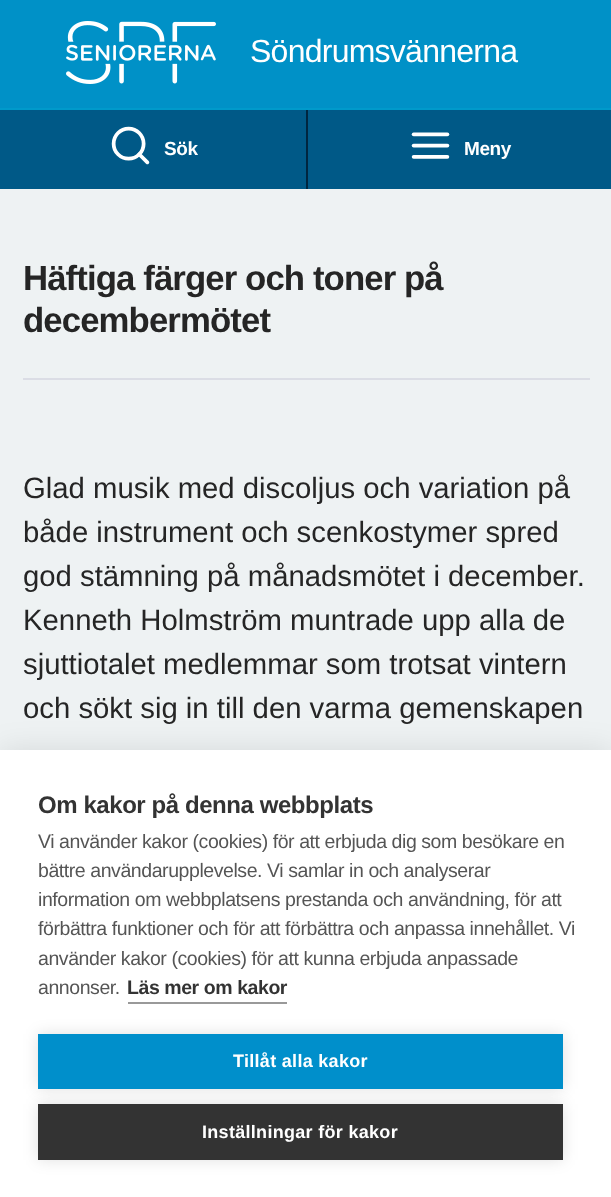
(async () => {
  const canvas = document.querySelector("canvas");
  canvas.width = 611;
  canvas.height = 1197;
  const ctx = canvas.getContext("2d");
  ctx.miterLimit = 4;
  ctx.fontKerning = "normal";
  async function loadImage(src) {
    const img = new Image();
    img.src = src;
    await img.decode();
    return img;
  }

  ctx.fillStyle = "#eef2f3";
  ctx.fillRect(0, 0, 611, 1197);
  ctx.fillStyle = "#0091c7";
  ctx.fillRect(0, 0, 611, 108);
  ctx.drawImage(await loadImage("img/1.png"), 66, 21, 150, 63);
  ctx.fillStyle = "#009acb";
  ctx.fillRect(0, 108, 611, 2);
  ctx.fillStyle = "#005987";
  ctx.fillRect(0, 110, 306, 79);
  ctx.drawImage(await loadImage("img/2.png"), 111, 126, 39, 39);
  ctx.fillRect(308, 110, 303, 79);
  ctx.fillStyle = "#002640";
  ctx.fillRect(306, 110, 2, 79);
  ctx.drawImage(await loadImage("img/3.png"), 411, 132, 39, 27);
  ctx.fillStyle = "#dbdde5";
  ctx.fillRect(23, 378, 567, 2);
  ctx.fillStyle = "rgba(0, 0, 0, 0.1)";
  ctx.filter = "blur(15px)";
  ctx.beginPath();
  ctx.rect(0, 750, 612, 447);
  ctx.fill();
  ctx.filter = "none";
  ctx.fillStyle = "#ffffff";
  ctx.fillRect(0, 750, 611, 447);
  ctx.fillStyle = "#999999";
  ctx.fillRect(128, 1002, 159, 2);
  ctx.fillStyle = "rgba(0, 0, 0, 0.12)";
  ctx.filter = "blur(7.5px)";
  ctx.beginPath();
  ctx.rect(38, 1034, 525, 55);
  ctx.fill();
  ctx.filter = "none";
  ctx.fillStyle = "#008fcb";
  ctx.fillRect(38, 1034, 525, 55);
  ctx.fillStyle = "rgba(0, 0, 0, 0.12)";
  ctx.filter = "blur(7.5px)";
  ctx.beginPath();
  ctx.rect(38, 1104, 525, 56);
  ctx.fill();
  ctx.filter = "none";
  ctx.fillStyle = "#333333";
  ctx.fillRect(38, 1104, 525, 56);
  ctx.letterSpacing = "-0.75px";
  ctx.font = "32px Liberation Sans";
  ctx.fillStyle = "#ffffff";
  ctx.fillText("Söndrumsvännerna", 250, 62);
  ctx.letterSpacing = "-0.43px";
  ctx.font = "bold 19px Liberation Sans";
  ctx.fillText("Sök", 164, 155);
  ctx.fillText("Meny", 464, 155);
  ctx.letterSpacing = "-0.9px";
  ctx.font = "bold 34.75px Liberation Sans";
  ctx.fillStyle = "#252525";
  ctx.fillText("Häftiga färger och toner på", 23, 290);
  ctx.fillText("decembermötet", 23, 332);
  ctx.letterSpacing = "0px";
  ctx.font = "29.3px Liberation Sans";
  for (const [text, x, y] of [
    ["Glad musik med discoljus och variation på", 23, 498],
    ["både instrument och scenkostymer spred", 23, 542],
    ["god stämning på månadsmötet i december.", 23, 586],
    ["Kenneth Holmström muntrade upp alla de", 23, 630],
    ["sjuttiotalet medlemmar som trotsat vintern", 23, 674],
    ["och sökt sig in till den varma gemenskapen", 23, 718],
  ]) {
    ctx.fillText(text, x, y);
  }
  ctx.letterSpacing = "-0.43px";
  ctx.font = "bold 24px Liberation Sans";
  ctx.fillStyle = "#333333";
  ctx.fillText("Om kakor på denna webbplats", 38, 813);
  ctx.font = "19.5px Liberation Sans";
  ctx.fillStyle = "#555555";
  for (const [text, x, y] of [
    ["Vi använder kakor (cookies) för att erbjuda dig som besökare en", 38, 848],
    ["bättre användarupplevelse. Vi samlar in och analyserar", 38, 877],
    ["information om webbplatsens prestanda och användning, för att", 38, 906],
    ["förbättra funktioner och för att förbättra och anpassa innehållet. Vi", 38, 935],
    ["använder kakor (cookies) för att kunna erbjuda anpassade", 38, 965],
    ["annonser.", 38, 994],
  ]) {
    ctx.fillText(text, x, y);
  }
  ctx.font = "bold 19.5px Liberation Sans";
  ctx.fillStyle = "#333333";
  ctx.fillText("Läs mer om kakor", 127, 994);
  ctx.letterSpacing = "0.3px";
  ctx.font = "bold 18px Liberation Sans";
  ctx.fillStyle = "#ffffff";
  ctx.fillText("Tillåt alla kakor", 233, 1067);
  ctx.fillText("Inställningar för kakor", 202, 1138);
})();
